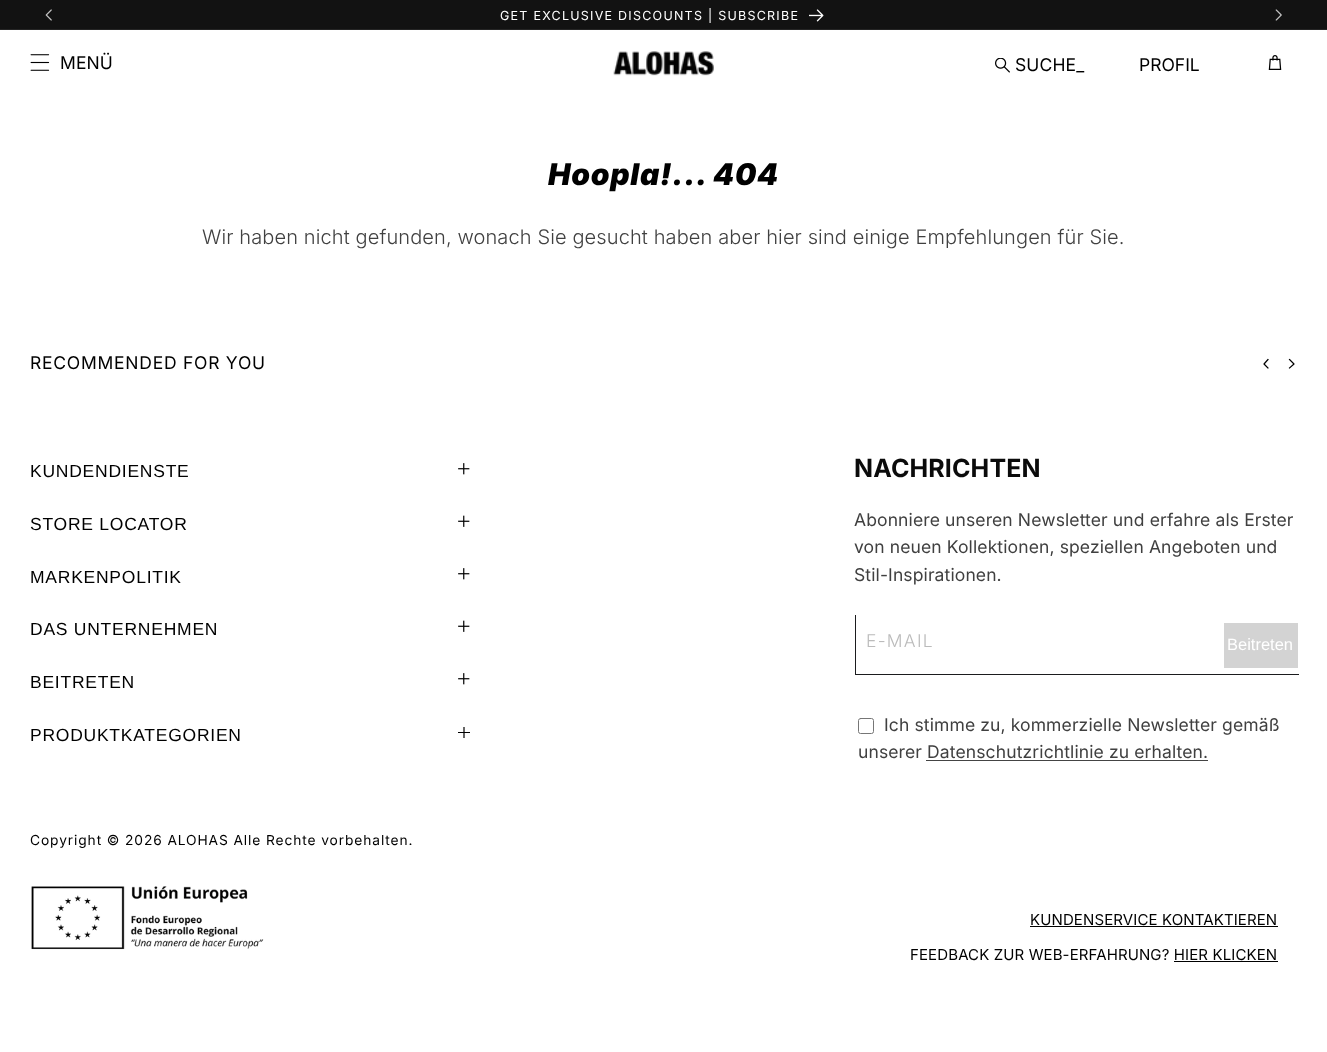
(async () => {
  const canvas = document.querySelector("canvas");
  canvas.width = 1327;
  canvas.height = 1052;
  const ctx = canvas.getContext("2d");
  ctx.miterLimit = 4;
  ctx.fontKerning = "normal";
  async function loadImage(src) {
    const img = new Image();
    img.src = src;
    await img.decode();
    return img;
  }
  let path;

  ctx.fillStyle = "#ffffff";
  ctx.fillRect(0, 0, 1327, 1052);
  ctx.fillStyle = "#121212";
  ctx.fillRect(0, 0, 1327, 29);
  ctx.fillStyle = "#252525";
  ctx.fillRect(0, 29, 1327, 1);
  ctx.drawImage(await loadImage("img/1.png"), 45, 9, 7, 12);
  ctx.drawImage(await loadImage("img/2.png"), 809, 9, 15, 13);
  ctx.drawImage(await loadImage("img/3.png"), 1275, 9, 7, 12);
  ctx.drawImage(await loadImage("img/4.png"), 30, 54, 20, 17);
  ctx.drawImage(await loadImage("img/5.png"), 613, 51, 101, 25);
  ctx.drawImage(await loadImage("img/6.png"), 995, 58, 15, 15);
  ctx.drawImage(await loadImage("img/7.png"), 1268, 55, 14, 15);
  path = new Path2D("M1268 368L1264 364L1268 359.5M1289.5 359.5L1294 364L1289.5 368");
  ctx.strokeStyle = "#000000";
  ctx.lineWidth = 1.2;
  ctx.lineCap = "square";
  ctx.lineJoin = "round";
  ctx.stroke(path);
  ctx.drawImage(await loadImage("img/8.png"), 458, 463, 12, 12);
  ctx.drawImage(await loadImage("img/9.png"), 458, 515, 12, 12);
  ctx.drawImage(await loadImage("img/8.png"), 458, 568, 12, 12);
  ctx.drawImage(await loadImage("img/9.png"), 458, 620, 12, 12);
  ctx.drawImage(await loadImage("img/8.png"), 458, 673, 12, 12);
  ctx.fillStyle = "#000000";
  ctx.fillRect(458, 732, 12, 1);
  path = new Path2D("M464 737.5V727.5");
  ctx.stroke(path);
  for (const [x, y, w, h, color] of [
    [855, 674, 444, 1, "#1b1c1e"],
    [855, 615, 1, 60, "#1b1c1e"],
    [1224, 623, 74, 45, "#d3d3d3"],
  ]) {
    ctx.fillStyle = color;
    ctx.fillRect(x, y, w, h);
  }
  ctx.beginPath();
  ctx.roundRect(858.5, 718.5, 15, 15, 2);
  ctx.strokeStyle = "#767676";
  ctx.lineWidth = 1;
  ctx.lineJoin = "miter";
  ctx.stroke();
  ctx.fillStyle = "#444444";
  ctx.fillRect(926, 760, 282, 1);
  ctx.drawImage(await loadImage("img/10.png"), 31, 886, 233, 64);
  ctx.fillStyle = "#000000";
  ctx.fillRect(1030, 926, 248, 1);
  ctx.fillRect(1174, 961, 104, 1);
  ctx.letterSpacing = "1.25px";
  ctx.font = "12.5px Inter";
  ctx.fillStyle = "#ffffff";
  ctx.fillText("GET EXCLUSIVE DISCOUNTS | SUBSCRIBE", 500, 20);
  ctx.letterSpacing = "0.12px";
  ctx.font = "17.5px Inter";
  ctx.fillStyle = "#000000";
  ctx.fillText("MENÜ", 60, 69);
  ctx.fillText("SUCHE_", 1015, 71);
  ctx.letterSpacing = "0px";
  ctx.fillText("PROFIL", 1139, 71);
  ctx.letterSpacing = "0.75px";
  ctx.font = "italic 900 30px Inter";
  ctx.fillText("Hoopla!... 404", 548, 185);
  ctx.letterSpacing = "0.12px";
  ctx.font = "300 20px Inter";
  ctx.fillStyle = "#404040";
  ctx.fillText("Wir haben nicht gefunden, wonach Sie gesucht haben aber hier sind einige Empfehlungen für Sie.", 202, 244);
  ctx.letterSpacing = "0.75px";
  ctx.font = "17.5px Inter";
  ctx.fillStyle = "#000000";
  ctx.fillText("RECOMMENDED FOR YOU", 30, 369);
  ctx.font = "17.5px Liberation Sans";
  for (const [text, x, y] of [
    ["KUNDENDIENSTE", 30, 477],
    ["STORE LOCATOR", 30, 530],
    ["MARKENPOLITIK", 30, 583],
    ["DAS UNTERNEHMEN", 30, 635],
    ["BEITRETEN", 30, 688],
    ["PRODUKTKATEGORIEN", 30, 741],
  ]) {
    ctx.fillText(text, x, y);
  }
  ctx.letterSpacing = "0.12px";
  ctx.font = "bold 25px Inter";
  ctx.fillStyle = "#0b0b0b";
  ctx.fillText("NACHRICHTEN", 854, 477);
  ctx.font = "17.5px Inter";
  ctx.fillStyle = "#404040";
  for (const [text, x, y] of [
    ["Abonniere unseren Newsletter und erfahre als Erster", 854, 526],
    ["von neuen Kollektionen, speziellen Angeboten und", 854, 553],
    ["Stil-Inspirationen.", 854, 581],
  ]) {
    ctx.fillText(text, x, y);
  }
  ctx.letterSpacing = "1.25px";
  ctx.font = "300 17.5px Inter";
  ctx.fillStyle = "#bbbbbb";
  ctx.fillText("E-MAIL", 866, 647);
  ctx.letterSpacing = "0px";
  ctx.font = "16.5px Liberation Sans";
  ctx.fillStyle = "#ffffff";
  ctx.fillText("Beitreten", 1227, 650);
  ctx.letterSpacing = "0.12px";
  ctx.font = "17.5px Inter";
  ctx.fillStyle = "#404040";
  ctx.fillText("Ich stimme zu, kommerzielle Newsletter gemäß", 884, 731);
  ctx.fillText("unserer Datenschutzrichtlinie zu erhalten.", 858, 758);
  ctx.letterSpacing = "0.9px";
  ctx.font = "13.75px Inter";
  ctx.fillStyle = "#000000";
  ctx.fillText("Copyright © 2026 ALOHAS Alle Rechte vorbehalten.", 30, 845);
  ctx.letterSpacing = "0.12px";
  ctx.font = "15px Inter";
  ctx.fillText("KUNDENSERVICE KONTAKTIEREN", 1030, 925);
  ctx.fillText("FEEDBACK ZUR WEB-ERFAHRUNG? HIER KLICKEN", 910, 960);
})();
